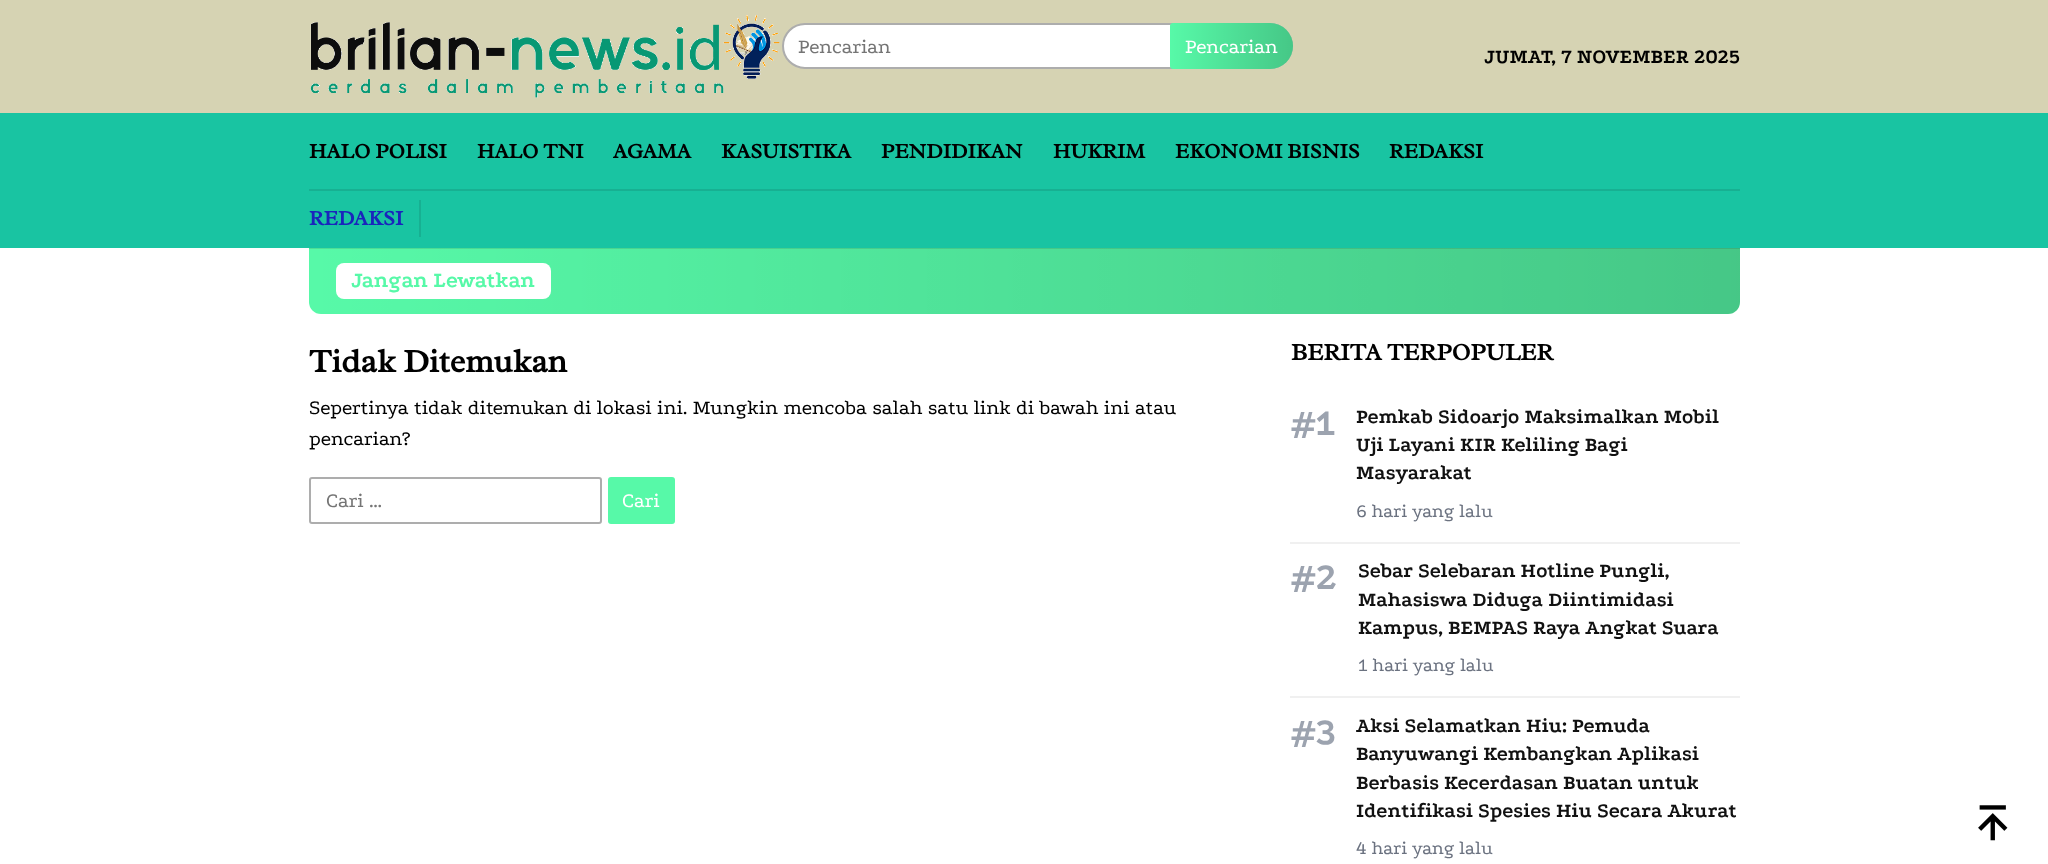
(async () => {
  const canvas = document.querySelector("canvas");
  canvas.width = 2048;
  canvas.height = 864;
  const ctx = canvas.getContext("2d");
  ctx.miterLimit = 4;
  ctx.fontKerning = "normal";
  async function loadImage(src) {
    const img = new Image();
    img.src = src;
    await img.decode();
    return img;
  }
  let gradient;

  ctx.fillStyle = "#d6d3b3";
  ctx.fillRect(0, 0, 2048, 864);
  ctx.drawImage(await loadImage("img/1.png"), 310, 15, 470, 83);
  ctx.fillStyle = "#ffffff";
  ctx.beginPath();
  ctx.roundRect(783, 24, 509, 44, 22);
  ctx.fill();
  ctx.strokeStyle = "#adadad";
  ctx.lineWidth = 2;
  ctx.stroke();
  ctx.fillStyle = "#57f9a8";
  ctx.beginPath();
  ctx.roundRect(1170, 23, 123, 46, [3, 23, 23, 3]);
  ctx.fill();
  gradient = ctx.createLinearGradient(1170, 46, 1293, 46);
  gradient.addColorStop(0, "rgba(0, 0, 0, 0)");
  gradient.addColorStop(1, "rgba(0, 0, 0, 0.2)");
  ctx.fillStyle = gradient;
  ctx.beginPath();
  ctx.roundRect(1170, 23, 123, 46, [3, 23, 23, 3]);
  ctx.fill();
  for (const [x, y, w, h, color] of [
    [0, 113, 2048, 135, "#19c4a2"],
    [309, 189, 1431, 2, "#17b092"],
    [0, 248, 2048, 616, "#ffffff"],
  ]) {
    ctx.fillStyle = color;
    ctx.fillRect(x, y, w, h);
  }
  ctx.fillStyle = "#57f9a8";
  ctx.beginPath();
  ctx.roundRect(309, 248, 1431, 66, [0, 0, 12, 12]);
  ctx.fill();
  gradient = ctx.createLinearGradient(309, 281, 1740, 280);
  gradient.addColorStop(0, "rgba(0, 0, 0, 0)");
  gradient.addColorStop(1, "rgba(0, 0, 0, 0.2)");
  ctx.fillStyle = gradient;
  ctx.beginPath();
  ctx.roundRect(309, 248, 1431, 66, [0, 0, 12, 12]);
  ctx.fill();
  ctx.fillStyle = "rgba(0, 0, 0, 0.1)";
  ctx.fillRect(309, 248, 1431, 1);
  ctx.fillStyle = "#17b092";
  ctx.fillRect(419, 200, 2, 37);
  ctx.fillStyle = "#ffffff";
  ctx.beginPath();
  ctx.roundRect(336, 263, 215, 36, 8);
  ctx.fill();
  ctx.beginPath();
  ctx.roundRect(310, 478, 291, 45, 2);
  ctx.stroke();
  ctx.fillStyle = "#57f9a8";
  ctx.beginPath();
  ctx.roundRect(608, 477, 67, 47, 3);
  ctx.fill();
  ctx.fillStyle = "#f0f0f0";
  ctx.fillRect(1290, 542, 450, 2);
  ctx.fillRect(1290, 696, 450, 2);
  ctx.drawImage(await loadImage("img/2.png"), 1978, 805, 30, 36);
  ctx.font = "21px Podkova";
  ctx.fillStyle = "#757575";
  ctx.fillText("Pencarian", 798, 53);
  ctx.fillStyle = "#ffffff";
  ctx.fillText("Pencarian", 1185, 53);
  ctx.font = "bold 21px Podkova";
  ctx.fillStyle = "#000000";
  ctx.fillText("JUMAT, 7 NOVEMBER 2025", 1484, 63);
  ctx.font = "bold 21px Radley";
  for (const [text, x, y] of [
    ["HALO POLISI", 309, 158],
    ["HALO TNI", 477, 158],
    ["AGAMA", 613, 158],
    ["KASUISTIKA", 721, 158],
    ["PENDIDIKAN", 881, 158],
    ["HUKRIM", 1053, 158],
    ["EKONOMI BISNIS", 1175, 158],
    ["REDAKSI", 1389, 158],
  ]) {
    ctx.fillText(text, x, y);
  }
  ctx.fillStyle = "#1a25bc";
  ctx.fillText("REDAKSI", 309, 225);
  ctx.font = "bold 22.5px Podkova";
  ctx.fillStyle = "#57f9a8";
  ctx.fillText("Jangan Lewatkan", 351, 287);
  ctx.font = "bold 33px Radley";
  ctx.fillStyle = "#000000";
  ctx.fillText("Tidak Ditemukan", 309, 372);
  ctx.font = "21px Podkova";
  ctx.fillText("Sepertinya tidak ditemukan di lokasi ini. Mungkin mencoba salah satu link di bawah ini atau", 309, 414);
  ctx.fillText("pencarian?", 309, 445);
  ctx.fillStyle = "#757575";
  ctx.fillText("Cari …", 326, 507);
  ctx.fillStyle = "#ffffff";
  ctx.fillText("Cari", 622, 507);
  ctx.font = "bold 24px Radley";
  ctx.fillStyle = "#000000";
  ctx.fillText("BERITA TERPOPULER", 1291, 360);
  ctx.font = "bold 39px Podkova";
  ctx.fillStyle = "#9ca3af";
  ctx.fillText("#1", 1291, 435);
  ctx.font = "bold 21px Podkova";
  ctx.fillStyle = "#111111";
  for (const [text, x, y] of [
    ["Pemkab Sidoarjo Maksimalkan Mobil", 1356, 423],
    ["Uji Layani KIR Keliling Bagi", 1356, 451],
    ["Masyarakat", 1356, 479],
  ]) {
    ctx.fillText(text, x, y);
  }
  ctx.font = "19.5px Podkova";
  ctx.fillStyle = "#6b7280";
  ctx.fillText("6 hari yang lalu", 1356, 517);
  ctx.font = "bold 39px Podkova";
  ctx.fillStyle = "#9ca3af";
  ctx.fillText("#2", 1291, 589);
  ctx.font = "bold 21px Podkova";
  ctx.fillStyle = "#111111";
  for (const [text, x, y] of [
    ["Sebar Selebaran Hotline Pungli,", 1358, 577],
    ["Mahasiswa Diduga Diintimidasi", 1358, 606],
    ["Kampus, BEMPAS Raya Angkat Suara", 1358, 634],
  ]) {
    ctx.fillText(text, x, y);
  }
  ctx.font = "19.5px Podkova";
  ctx.fillStyle = "#6b7280";
  ctx.fillText("1 hari yang lalu", 1358, 671);
  ctx.font = "bold 39px Podkova";
  ctx.fillStyle = "#9ca3af";
  ctx.fillText("#3", 1291, 744);
  ctx.font = "bold 21px Podkova";
  ctx.fillStyle = "#111111";
  for (const [text, x, y] of [
    ["Aksi Selamatkan Hiu: Pemuda", 1356, 732],
    ["Banyuwangi Kembangkan Aplikasi", 1356, 760],
    ["Berbasis Kecerdasan Buatan untuk", 1356, 789],
    ["Identifikasi Spesies Hiu Secara Akurat", 1356, 817],
  ]) {
    ctx.fillText(text, x, y);
  }
  ctx.font = "19.5px Podkova";
  ctx.fillStyle = "#6b7280";
  ctx.fillText("4 hari yang lalu", 1356, 854);
})();
